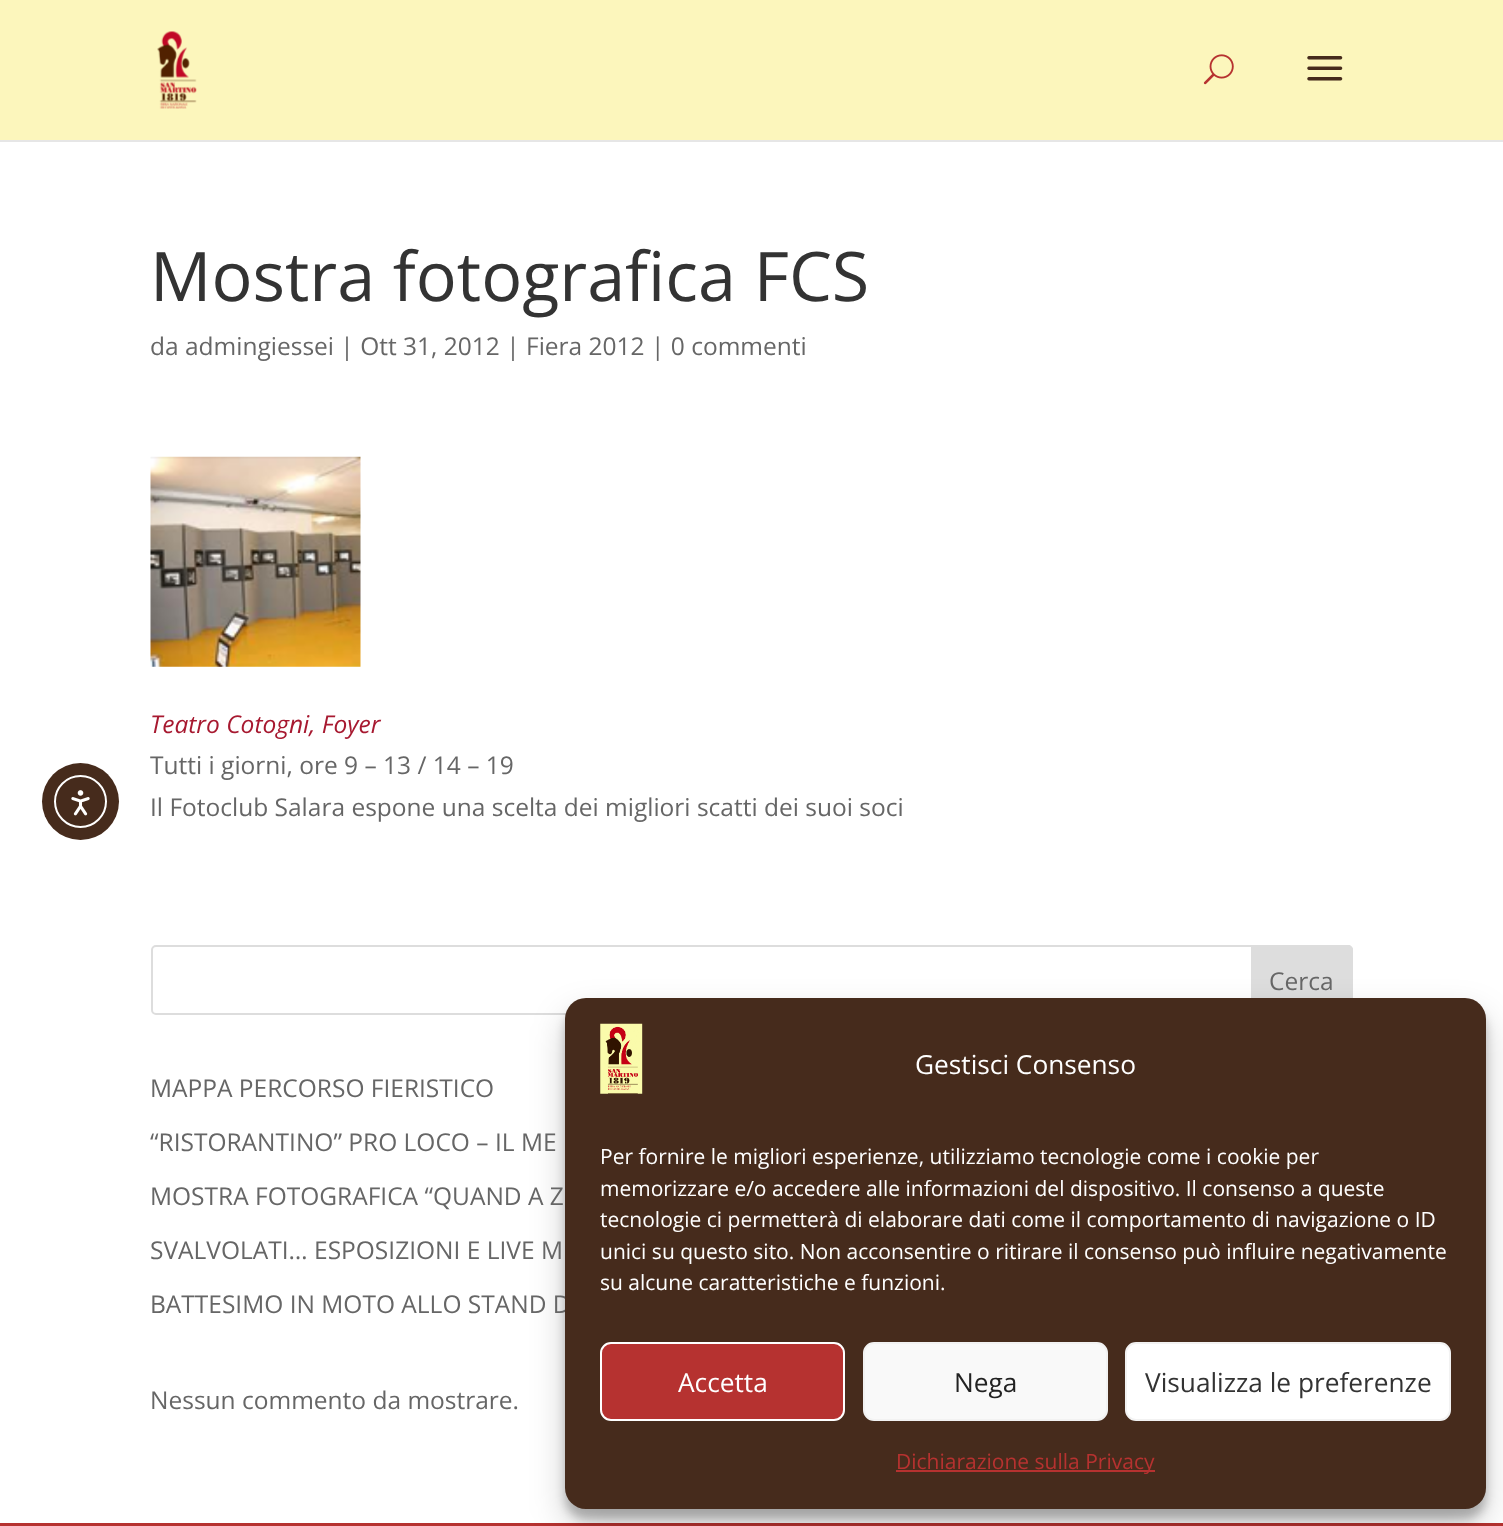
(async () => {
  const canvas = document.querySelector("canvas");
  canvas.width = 1503;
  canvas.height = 1526;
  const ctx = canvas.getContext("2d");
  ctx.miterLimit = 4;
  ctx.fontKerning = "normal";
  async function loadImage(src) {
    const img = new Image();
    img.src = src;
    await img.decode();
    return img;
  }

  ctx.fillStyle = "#ffffff";
  ctx.fillRect(0, 0, 1503, 1526);
  ctx.fillStyle = "#462b1c";
  ctx.beginPath();
  ctx.arc(80.5, 801.5, 38.5, 0, Math.PI * 2);
  ctx.fill();
  ctx.beginPath();
  ctx.arc(80.5, 801.5, 25.5, 0, Math.PI * 2);
  ctx.strokeStyle = "#ffffff";
  ctx.lineWidth = 2;
  ctx.stroke();
  ctx.drawImage(await loadImage("img/1.png"), 71, 790, 19, 26);
  ctx.fillStyle = "#e6e6e6";
  ctx.fillRect(0, 140, 1503, 2);
  ctx.fillStyle = "#fcf6bc";
  ctx.fillRect(0, 0, 1503, 140);
  ctx.drawImage(await loadImage("img/2.png"), 157, 31, 40, 78);
  ctx.drawImage(await loadImage("img/3.png"), 1203, 54, 31, 31);
  ctx.drawImage(await loadImage("img/4.png"), 1307, 56, 36, 25);
  ctx.drawImage(await loadImage("img/5.png"), 150, 456, 211, 211);
  ctx.beginPath();
  ctx.roundRect(152, 946, 1200, 68, 4);
  ctx.strokeStyle = "#dddddd";
  ctx.stroke();
  ctx.fillStyle = "#dddddd";
  ctx.beginPath();
  ctx.roundRect(1252, 946, 100, 68, [0, 4, 4, 0]);
  ctx.fill();
  ctx.stroke();
  ctx.fillStyle = "#b63230";
  ctx.fillRect(0, 1523, 1503, 3);
  ctx.fillStyle = "rgba(0, 0, 0, 0.23)";
  ctx.filter = "blur(5px)";
  ctx.beginPath();
  ctx.roundRect(565, 1008, 921, 511, 21);
  ctx.fill();
  ctx.filter = "none";
  ctx.fillStyle = "rgba(0, 0, 0, 0.19)";
  ctx.filter = "blur(17.5px)";
  ctx.beginPath();
  ctx.roundRect(565, 1015, 921, 511, 21);
  ctx.fill();
  ctx.filter = "none";
  ctx.font = "68.25px Open Sans";
  ctx.fillStyle = "#333333";
  ctx.fillText("Mostra fotografica FCS", 150, 301);
  ctx.font = "24.5px Open Sans";
  ctx.fillStyle = "#666666";
  ctx.fillText("da admingiessei | Ott 31, 2012 | Fiera 2012 | 0 commenti", 150, 355);
  ctx.font = "italic 24.5px Open Sans";
  ctx.fillStyle = "#a71930";
  ctx.fillText("Teatro Cotogni, Foyer", 150, 733);
  ctx.font = "24.5px Open Sans";
  ctx.fillStyle = "#666666";
  for (const [text, x, y] of [
    ["Tutti i giorni, ore 9 – 13 / 14 – 19", 150, 774],
    ["Il Fotoclub Salara espone una scelta dei migliori scatti dei suoi soci", 150, 816],
    ["Cerca", 1269, 990],
    ["MAPPA PERCORSO FIERISTICO", 150, 1097],
    ["“RISTORANTINO” PRO LOCO – IL ME", 150, 1151],
    ["MOSTRA FOTOGRAFICA “QUAND A Z", 150, 1205],
    ["SVALVOLATI… ESPOSIZIONI E LIVE M", 150, 1259],
    ["BATTESIMO IN MOTO ALLO STAND D", 150, 1313],
    ["Nessun commento da mostrare.", 150, 1409],
  ]) {
    ctx.fillText(text, x, y);
  }
  ctx.fillStyle = "#462b1c";
  ctx.beginPath();
  ctx.roundRect(565, 998, 921, 511, 21);
  ctx.fill();
  ctx.drawImage(await loadImage("img/6.png"), 600, 1023, 43, 71);
  ctx.font = "26.25px Open Sans";
  ctx.fillStyle = "#ffffff";
  ctx.fillText("Gestisci Consenso", 915, 1074);
  ctx.font = "21px Open Sans";
  for (const [text, x, y] of [
    ["Per fornire le migliori esperienze, utilizziamo tecnologie come i cookie per", 600, 1164],
    ["memorizzare e/o accedere alle informazioni del dispositivo. Il consenso a queste", 600, 1196],
    ["tecnologie ci permetterà di elaborare dati come il comportamento di navigazione o ID", 600, 1227],
    ["unici su questo sito. Non acconsentire o ritirare il consenso può influire negativamente", 600, 1259],
    ["su alcune caratteristiche e funzioni.", 600, 1290],
  ]) {
    ctx.fillText(text, x, y);
  }
  ctx.fillStyle = "#b63230";
  ctx.beginPath();
  ctx.roundRect(601, 1343, 243, 77, 10);
  ctx.fill();
  ctx.strokeStyle = "#ffffff";
  ctx.stroke();
  ctx.font = "26.25px Open Sans";
  ctx.fillStyle = "#ffffff";
  ctx.fillText("Accetta", 678, 1392);
  ctx.fillStyle = "#f9f9f9";
  ctx.beginPath();
  ctx.roundRect(864, 1343, 243, 77, 10);
  ctx.fill();
  ctx.strokeStyle = "#f2f2f2";
  ctx.stroke();
  ctx.fillStyle = "#222222";
  ctx.fillText("Nega", 954, 1392);
  ctx.fillStyle = "#ffffff";
  ctx.beginPath();
  ctx.roundRect(1126, 1343, 324, 77, 10);
  ctx.fill();
  ctx.stroke();
  ctx.fillStyle = "#333333";
  ctx.fillText("Visualizza le preferenze", 1145, 1392);
  ctx.fillStyle = "#b63230";
  ctx.fillRect(896, 1470, 259, 2);
  ctx.font = "21px Open Sans";
  ctx.fillText("Dichiarazione sulla Privacy", 896, 1469);
})();
